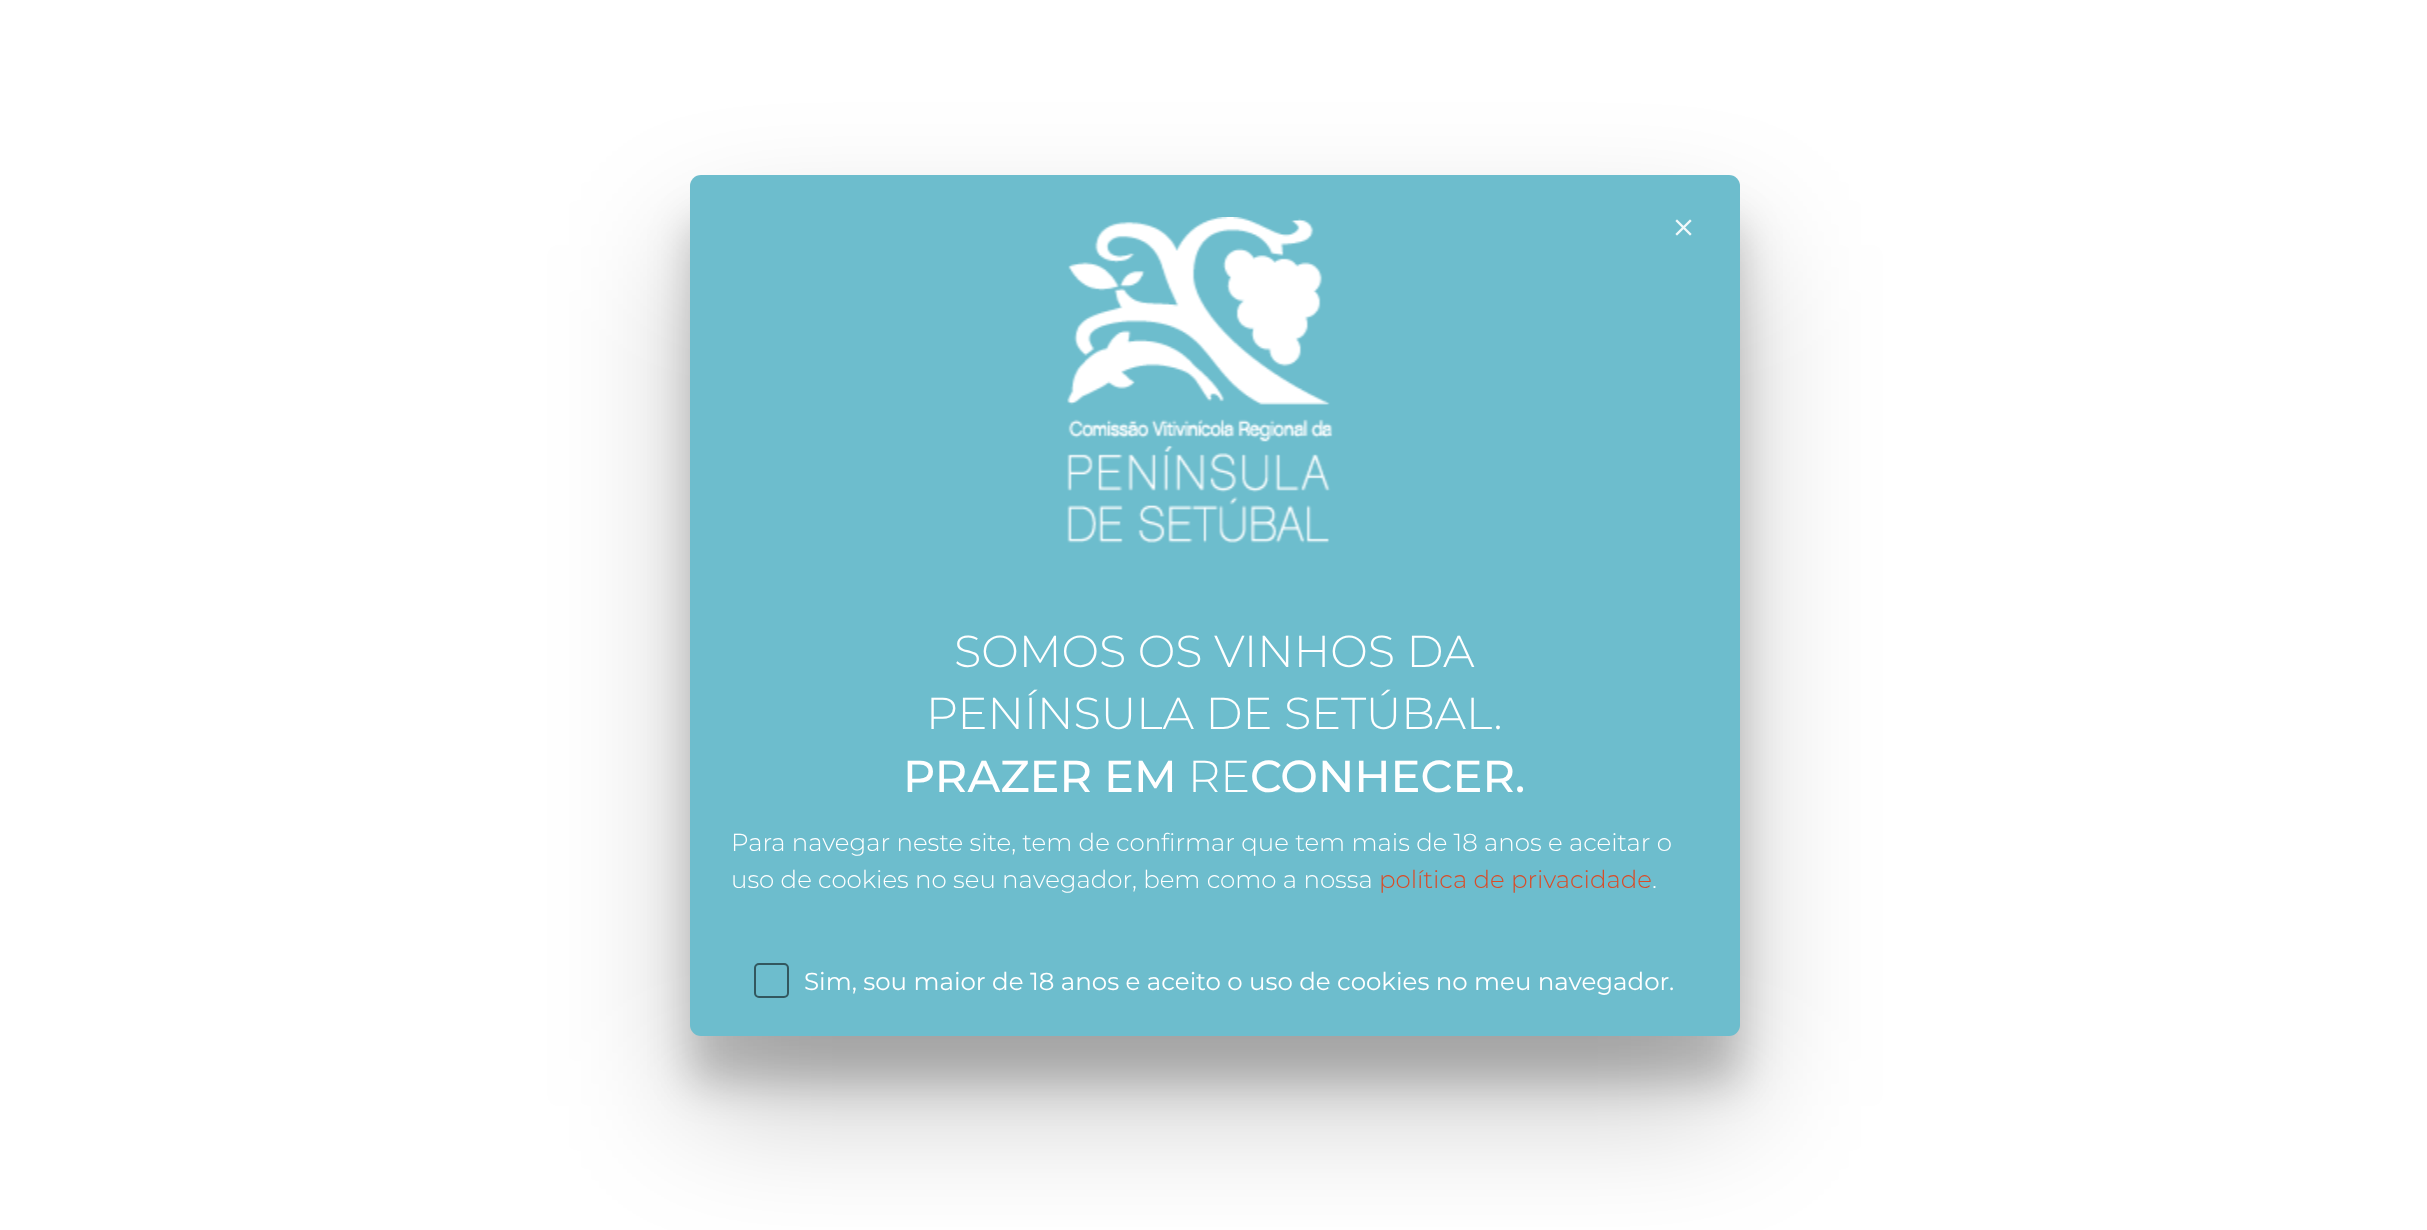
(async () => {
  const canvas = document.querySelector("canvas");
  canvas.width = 2427;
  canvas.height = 1230;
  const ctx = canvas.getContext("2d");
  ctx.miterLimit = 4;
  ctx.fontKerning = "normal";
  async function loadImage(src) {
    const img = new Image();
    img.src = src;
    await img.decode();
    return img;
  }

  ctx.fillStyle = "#ffffff";
  ctx.fillRect(0, 0, 2427, 1230);
  ctx.fillStyle = "rgba(0, 0, 0, 0.22)";
  ctx.filter = "blur(67.5px)";
  ctx.beginPath();
  ctx.roundRect(690, 245, 1050, 861, 11);
  ctx.fill();
  ctx.filter = "none";
  ctx.fillStyle = "rgba(0, 0, 0, 0.2)";
  ctx.filter = "blur(21px)";
  ctx.beginPath();
  ctx.roundRect(690, 222, 1050, 861, 11);
  ctx.fill();
  ctx.filter = "none";
  ctx.fillStyle = "#6dbdcd";
  ctx.beginPath();
  ctx.roundRect(690, 175, 1050, 861, 11);
  ctx.fill();
  ctx.drawImage(await loadImage("img/1.png"), 1067, 217, 266, 326);
  ctx.drawImage(await loadImage("img/2.png"), 1675, 219, 17, 17);
  ctx.beginPath();
  ctx.roundRect(755, 964, 33, 33, 4);
  ctx.strokeStyle = "#32575e";
  ctx.lineWidth = 2;
  ctx.stroke();
  ctx.font = "300 44.75px Montserrat";
  ctx.fillStyle = "#ffffff";
  ctx.fillText("SOMOS OS VINHOS DA", 954, 667);
  ctx.fillText("PENÍNSULA DE SETÚBAL.", 926, 729);
  ctx.font = "500 44.75px Montserrat";
  ctx.fillText("PRAZER EM", 903, 792);
  ctx.font = "300 44.75px Montserrat";
  ctx.fillText("RE", 1188, 792);
  ctx.font = "500 44.75px Montserrat";
  ctx.fillText("CONHECER.", 1250, 792);
  ctx.font = "300 24.5px Montserrat";
  ctx.fillText("Para navegar neste site, tem de confirmar que tem mais de 18 anos e aceitar o", 731, 851);
  ctx.fillText("uso de cookies no seu navegador, bem como a nossa", 731, 888);
  ctx.fillStyle = "#da4b27";
  ctx.fillText("política de privacidade", 1379, 888);
  ctx.fillStyle = "#ffffff";
  ctx.fillText(".", 1652, 888);
  ctx.font = "24.5px Montserrat";
  ctx.fillText("Sim, sou maior de 18 anos e aceito o uso de cookies no meu navegador.", 804, 990);
})();
